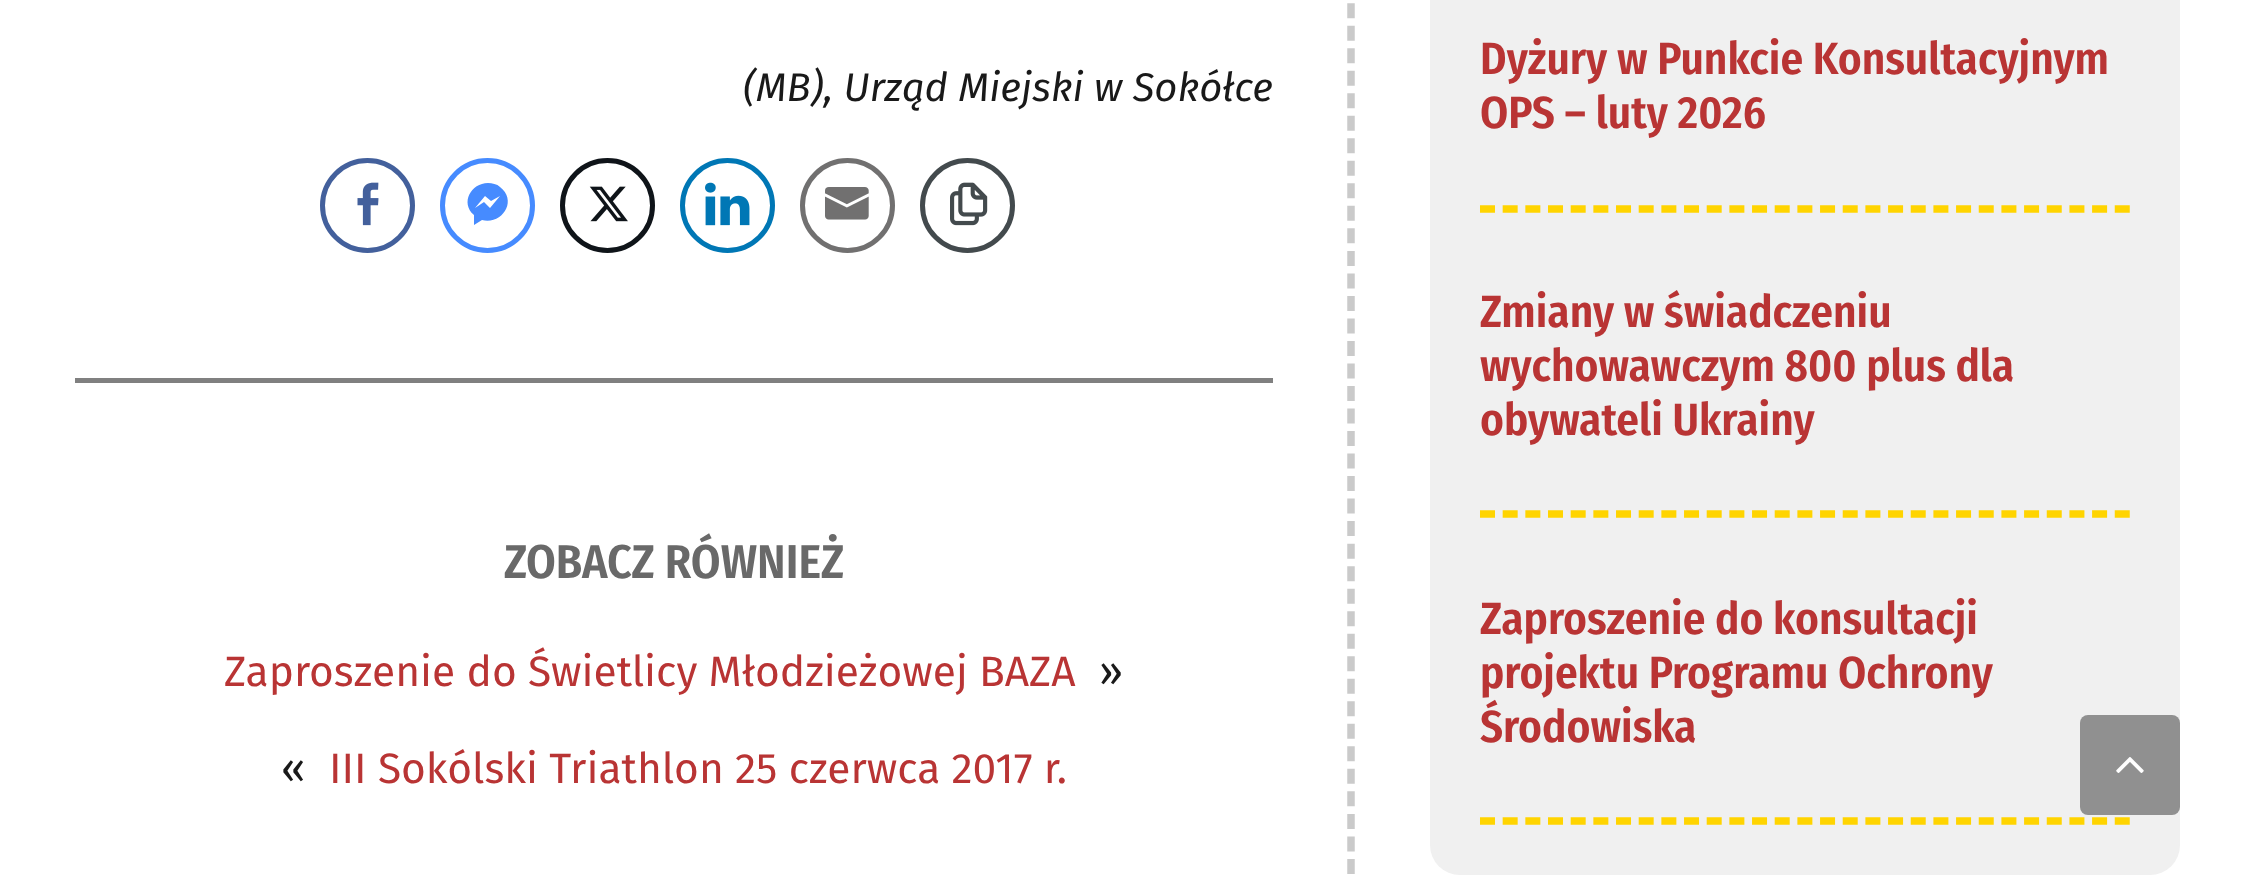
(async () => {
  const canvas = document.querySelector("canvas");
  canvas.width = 2254;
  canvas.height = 888;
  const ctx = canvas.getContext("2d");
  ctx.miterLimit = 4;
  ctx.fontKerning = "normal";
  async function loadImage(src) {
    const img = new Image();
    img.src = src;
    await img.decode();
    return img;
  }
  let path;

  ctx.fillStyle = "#ffffff";
  ctx.fillRect(0, 0, 2254, 888);
  path = new Path2D("M1351-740V875");
  ctx.strokeStyle = "#cacaca";
  ctx.lineWidth = 7.5;
  ctx.setLineDash([15, 7.52]);
  ctx.stroke(path);
  ctx.beginPath();
  ctx.arc(367.5, 205.5, 45, 0, Math.PI * 2);
  ctx.strokeStyle = "#43609c";
  ctx.lineWidth = 5;
  ctx.setLineDash([]);
  ctx.stroke();
  ctx.drawImage(await loadImage("img/1.png"), 357, 182, 22, 44);
  ctx.beginPath();
  ctx.arc(487.5, 205.5, 45, 0, Math.PI * 2);
  ctx.strokeStyle = "#468bff";
  ctx.stroke();
  ctx.fillStyle = "#468bff";
  path = new Path2D("M488 183C471 183 460 203 474 215V225L482 220C502 225 518 201 500 187C497 184 492 183 488 183ZM490 208L484 202L475 208L485 196L491 201L500 196Z");
  ctx.fill(path);
  ctx.beginPath();
  ctx.arc(607.5, 205.5, 45, 0, Math.PI * 2);
  ctx.strokeStyle = "#0f1419";
  ctx.stroke();
  ctx.drawImage(await loadImage("img/2.png"), 589, 186, 39, 36);
  ctx.beginPath();
  ctx.arc(727.5, 205.5, 45, 0, Math.PI * 2);
  ctx.strokeStyle = "#0077b5";
  ctx.stroke();
  ctx.drawImage(await loadImage("img/3.png"), 705, 182, 45, 44);
  ctx.beginPath();
  ctx.arc(847.5, 205.5, 45, 0, Math.PI * 2);
  ctx.strokeStyle = "#717070";
  ctx.stroke();
  ctx.drawImage(await loadImage("img/4.png"), 825, 187, 44, 33);
  ctx.beginPath();
  ctx.arc(967.5, 205.5, 45, 0, Math.PI * 2);
  ctx.strokeStyle = "#434a4d";
  ctx.stroke();
  ctx.drawImage(await loadImage("img/5.png"), 950, 182, 38, 44);
  ctx.fillStyle = "#808080";
  ctx.fillRect(75, 378, 1198, 5);
  ctx.fillStyle = "#f0f0f0";
  ctx.beginPath();
  ctx.roundRect(1430, -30, 750, 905, 30);
  ctx.fill();
  path = new Path2D("M1480 209H2130");
  ctx.strokeStyle = "#ffd400";
  ctx.lineWidth = 7.5;
  ctx.setLineDash([15, 7.67]);
  ctx.stroke(path);
  path = new Path2D("M1480 514H2130");
  ctx.stroke(path);
  path = new Path2D("M1480 821H2130");
  ctx.stroke(path);
  ctx.fillStyle = "#909090";
  ctx.beginPath();
  ctx.roundRect(2080, 715, 100, 100, 8);
  ctx.fill();
  ctx.drawImage(await loadImage("img/6.png"), 2116, 757, 28, 16);
  ctx.font = "italic 40px Fira Sans";
  ctx.fillStyle = "#191919";
  ctx.fillText("(MB), Urząd Miejski w Sokółce", 743, 101);
  ctx.font = "600 47.5px Fira Sans Condensed";
  ctx.fillStyle = "#696969";
  ctx.fillText("ZOBACZ RÓWNIEŻ", 504, 578);
  ctx.font = "42.5px Fira Sans";
  ctx.fillStyle = "#b93434";
  ctx.fillText("Zaproszenie do Świetlicy Młodzieżowej BAZA", 224, 686);
  ctx.fillStyle = "#191919";
  ctx.fillText("»", 1099, 686);
  ctx.fillText("«", 281, 783);
  ctx.fillStyle = "#b93434";
  ctx.fillText("III Sokólski Triathlon 25 czerwca 2017 r.", 329, 783);
  ctx.font = "600 45px Fira Sans Condensed";
  for (const [text, x, y] of [
    ["Dyżury w Punkcie Konsultacyjnym", 1480, 74],
    ["OPS – luty 2026", 1480, 128],
    ["Zmiany w świadczeniu", 1480, 327],
    ["wychowawczym 800 plus dla", 1480, 381],
    ["obywateli Ukrainy", 1480, 435],
    ["Zaproszenie do konsultacji", 1480, 634],
    ["projektu Programu Ochrony", 1480, 688],
    ["Środowiska", 1480, 742],
  ]) {
    ctx.fillText(text, x, y);
  }
})();
